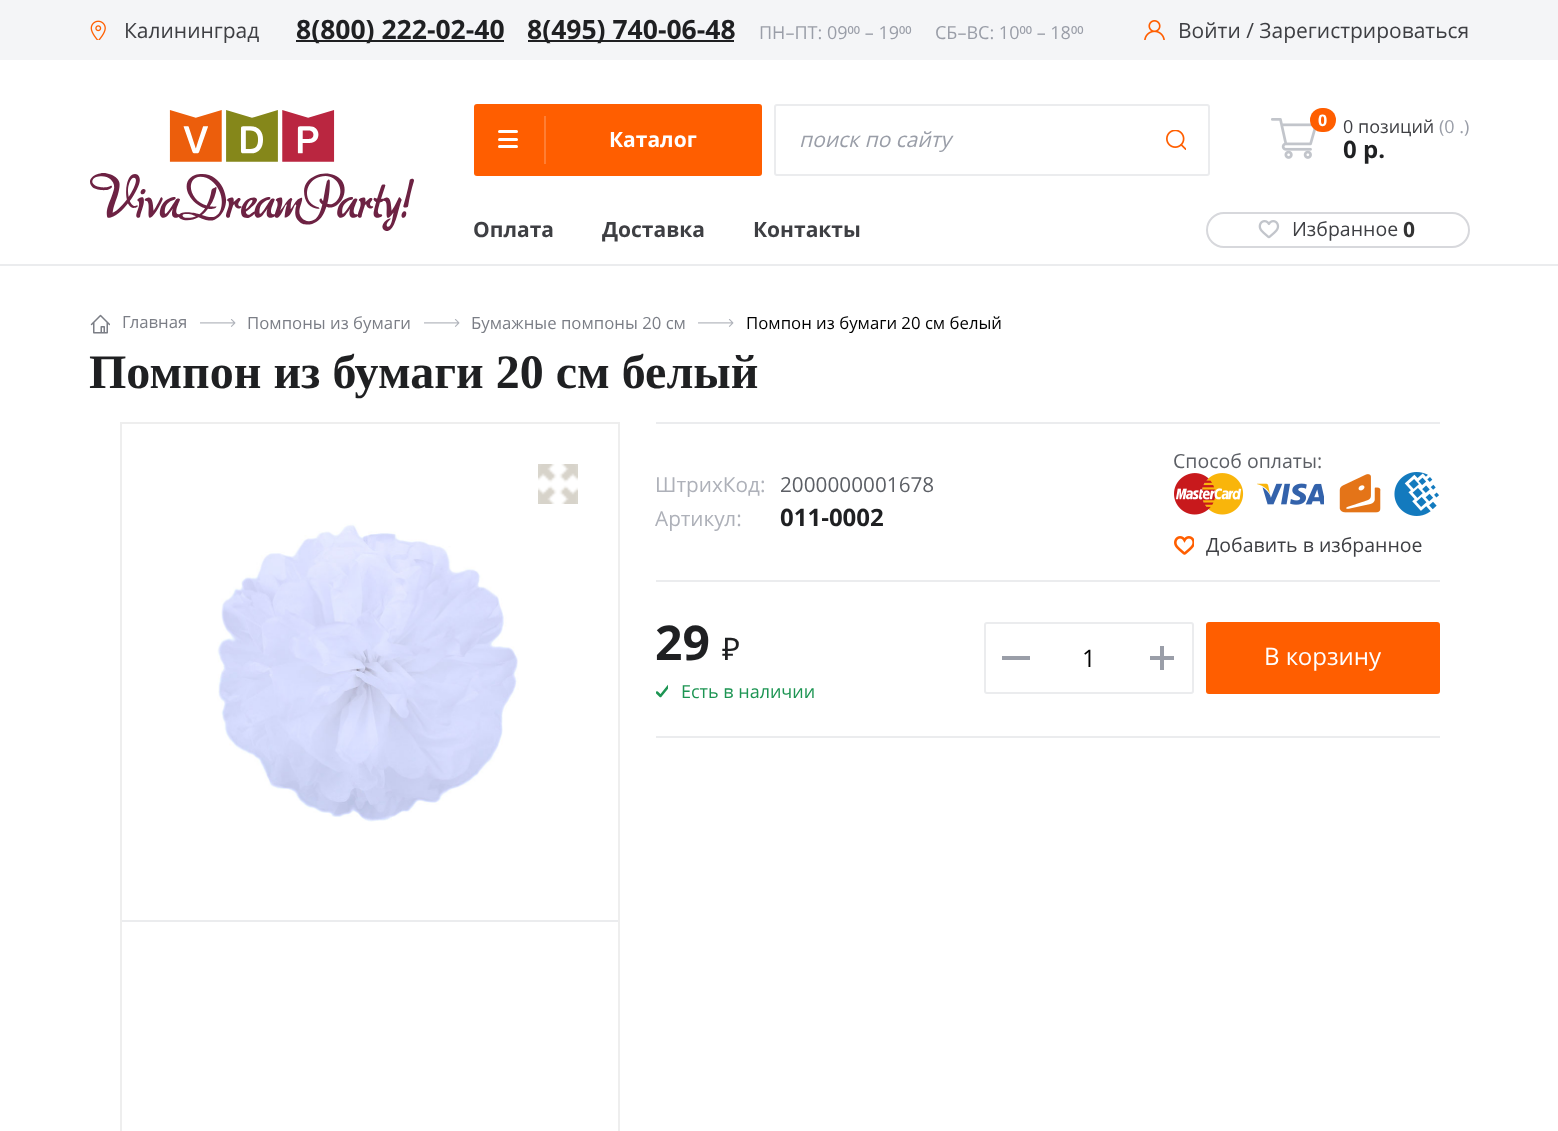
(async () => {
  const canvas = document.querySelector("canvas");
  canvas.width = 1558;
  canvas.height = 1131;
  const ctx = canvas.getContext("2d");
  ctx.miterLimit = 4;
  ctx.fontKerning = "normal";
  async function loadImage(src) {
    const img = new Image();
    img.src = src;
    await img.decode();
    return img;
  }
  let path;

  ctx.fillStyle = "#ffffff";
  ctx.fillRect(0, 0, 1558, 1131);
  ctx.fillStyle = "#ebecee";
  ctx.fillRect(0, 264, 1558, 2);
  ctx.fillStyle = "#f4f5f7";
  ctx.fillRect(0, 0, 1558, 60);
  ctx.drawImage(await loadImage("img/1.png"), 90, 20, 16, 20);
  ctx.fillStyle = "#1f2022";
  ctx.fillRect(296, 40, 208, 2);
  ctx.fillRect(528, 40, 206, 2);
  ctx.drawImage(await loadImage("img/2.png"), 1144, 20, 21, 20);
  ctx.drawImage(await loadImage("img/3.png"), 90, 110, 324, 121);
  ctx.fillStyle = "#ff5e00";
  ctx.beginPath();
  ctx.roundRect(474, 104, 288, 72, 3);
  ctx.fill();
  ctx.fillStyle = "#ff7e33";
  ctx.fillRect(544, 116, 2, 48);
  ctx.fillStyle = "#ffffff";
  ctx.beginPath();
  ctx.roundRect(498, 130, 20, 3, 1.5);
  ctx.fill();
  ctx.beginPath();
  ctx.roundRect(498, 138, 20, 3, 1.5);
  ctx.fill();
  ctx.beginPath();
  ctx.roundRect(498, 145, 20, 3, 1.5);
  ctx.fill();
  ctx.beginPath();
  ctx.roundRect(775, 105, 434, 70, 2);
  ctx.strokeStyle = "#ebecee";
  ctx.lineWidth = 2;
  ctx.stroke();
  ctx.drawImage(await loadImage("img/4.png"), 1166, 130, 20, 20);
  ctx.drawImage(await loadImage("img/5.png"), 1271, 118, 45, 41);
  ctx.fillStyle = "#ff5e00";
  ctx.beginPath();
  ctx.roundRect(1310, 108, 26, 24, 12);
  ctx.fill();
  ctx.beginPath();
  ctx.roundRect(1207, 213, 262, 34, 17);
  ctx.strokeStyle = "#d7d8dc";
  ctx.stroke();
  ctx.drawImage(await loadImage("img/6.png"), 1258, 220, 22, 19);
  ctx.drawImage(await loadImage("img/7.png"), 90, 314, 20, 20);
  ctx.drawImage(await loadImage("img/8.png"), 200, 319, 36, 8);
  ctx.drawImage(await loadImage("img/8.png"), 424, 319, 36, 8);
  ctx.drawImage(await loadImage("img/8.png"), 698, 319, 36, 8);
  ctx.strokeStyle = "#eeeeee";
  ctx.strokeRect(121, 423, 498, 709);
  ctx.fillStyle = "#ebecee";
  ctx.fillRect(122, 920, 496, 2);
  ctx.drawImage(await loadImage("img/9.png"), 217, 462, 363, 360);
  ctx.drawImage(await loadImage("img/10.png"), 538, 464, 40, 40);
  ctx.fillRect(656, 422, 784, 2);
  ctx.drawImage(await loadImage("img/11.png"), 1174, 473, 70, 42);
  ctx.drawImage(await loadImage("img/12.png"), 1257, 483, 67, 22);
  ctx.drawImage(await loadImage("img/13.png"), 1339, 474, 42, 39);
  ctx.drawImage(await loadImage("img/14.png"), 1394, 472, 45, 44);
  ctx.drawImage(await loadImage("img/15.png"), 1174, 536, 20, 19);
  ctx.fillRect(656, 580, 784, 2);
  ctx.fillRect(656, 736, 784, 2);
  ctx.save();
  ctx.beginPath();
  ctx.rect(656, 682, 12, 18);
  ctx.clip();
  path = new Path2D("M657 692.5L660.5 696L668.5 686");
  ctx.strokeStyle = "#1d9553";
  ctx.lineWidth = 2.5;
  ctx.lineCap = "round";
  ctx.lineJoin = "round";
  ctx.stroke(path);
  ctx.restore();
  ctx.beginPath();
  ctx.roundRect(985, 623, 208, 70, 2);
  ctx.strokeStyle = "#ebecee";
  ctx.stroke();
  for (const [x, y, w, h, color] of [
    [1002, 656, 28, 4, "#9a9ea8"],
    [1150, 656, 24, 4, "#9a9ea8"],
    [1160, 646, 4, 24, "#9a9ea8"],
  ]) {
    ctx.fillStyle = color;
    ctx.fillRect(x, y, w, h);
  }
  ctx.fillStyle = "#ff5e00";
  ctx.beginPath();
  ctx.roundRect(1206, 622, 234, 72, 3);
  ctx.fill();
  ctx.font = "21px Open Sans";
  ctx.fillStyle = "#3e3f43";
  ctx.fillText("Калининград", 124, 38);
  ctx.font = "bold 26.5px Open Sans";
  ctx.fillStyle = "#1f2022";
  ctx.fillText("8(800) 222-02-40", 296, 39);
  ctx.fillText("8(495) 740-06-48", 527, 39);
  ctx.font = "18px Open Sans";
  ctx.fillStyle = "#9a9ea8";
  ctx.fillText("ПН–ПТ: 09⁰⁰ – 19⁰⁰", 759, 39);
  ctx.fillText("СБ–ВС: 10⁰⁰ – 18⁰⁰", 935, 39);
  ctx.font = "21px Open Sans";
  ctx.fillStyle = "#3e3f43";
  ctx.fillText("Войти / Зарегистрироваться", 1178, 38);
  ctx.font = "bold 21px Open Sans";
  ctx.fillStyle = "#ffffff";
  ctx.fillText("Каталог", 609, 147);
  ctx.font = "italic 21px Open Sans";
  ctx.fillStyle = "#9a9ea8";
  ctx.fillText("поиск по сайту", 799, 147);
  ctx.font = "bold 16px Open Sans";
  ctx.fillStyle = "#ffffff";
  ctx.fillText("0", 1318, 126);
  ctx.font = "18px Open Sans";
  ctx.fillStyle = "#3e3f43";
  ctx.fillText("0 позиций", 1343, 133);
  ctx.fillStyle = "#9a9ea8";
  ctx.fillText("(0 .)", 1439, 133);
  ctx.font = "bold 24px Open Sans";
  ctx.fillStyle = "#1f2022";
  ctx.fillText("0 р.", 1343, 158);
  ctx.font = "bold 21px Open Sans";
  ctx.fillStyle = "#3e3f43";
  for (const [text, x, y] of [
    ["Оплата", 473, 237],
    ["Доставка", 602, 237],
    ["Контакты", 753, 237],
  ]) {
    ctx.fillText(text, x, y);
  }
  ctx.font = "19.5px Open Sans";
  ctx.fillText("Избранное", 1292, 236);
  ctx.font = "bold 21px Open Sans";
  ctx.fillStyle = "#333333";
  ctx.fillText("0", 1403, 237);
  ctx.font = "16.75px Open Sans";
  ctx.fillStyle = "#7b7e86";
  for (const [text, x, y] of [
    ["Главная", 122, 328],
    ["Помпоны из бумаги", 247, 329],
    ["Бумажные помпоны 20 см", 471, 329],
  ]) {
    ctx.fillText(text, x, y);
  }
  ctx.fillStyle = "#000000";
  ctx.fillText("Помпон из бумаги 20 см белый", 746, 329);
  ctx.font = "bold 48px Liberation Serif";
  ctx.fillStyle = "#1f2022";
  ctx.fillText("Помпон из бумаги 20 см белый", 89, 388);
  ctx.font = "20.75px Open Sans";
  ctx.fillStyle = "#aeb1b9";
  ctx.fillText("ШтрихКод:", 655, 492);
  ctx.fillStyle = "#5c5f65";
  ctx.fillText("2000000001678", 780, 492);
  ctx.fillStyle = "#aeb1b9";
  ctx.fillText("Артикул:", 655, 526);
  ctx.font = "bold 24px Open Sans";
  ctx.fillStyle = "#1f2022";
  ctx.fillText("011-0002", 780, 526);
  ctx.font = "19.5px Open Sans";
  ctx.fillStyle = "#5c5f65";
  ctx.fillText("Способ оплаты:", 1173, 468);
  ctx.fillStyle = "#3e3f43";
  ctx.fillText("Добавить в избранное", 1206, 552);
  ctx.font = "bold 48px Open Sans";
  ctx.fillStyle = "#1f2022";
  ctx.fillText("29", 655, 660);
  ctx.font = "31px Noto Sans";
  ctx.fillText("₽", 722, 660);
  ctx.font = "18px Open Sans";
  ctx.fillStyle = "#1d9553";
  ctx.fillText("Есть в наличии", 681, 698);
  ctx.font = "24px Open Sans";
  ctx.fillStyle = "#000000";
  ctx.fillText("1", 1082, 667);
  ctx.fillStyle = "#ffffff";
  ctx.fillText("В корзину", 1264, 665);
})();
